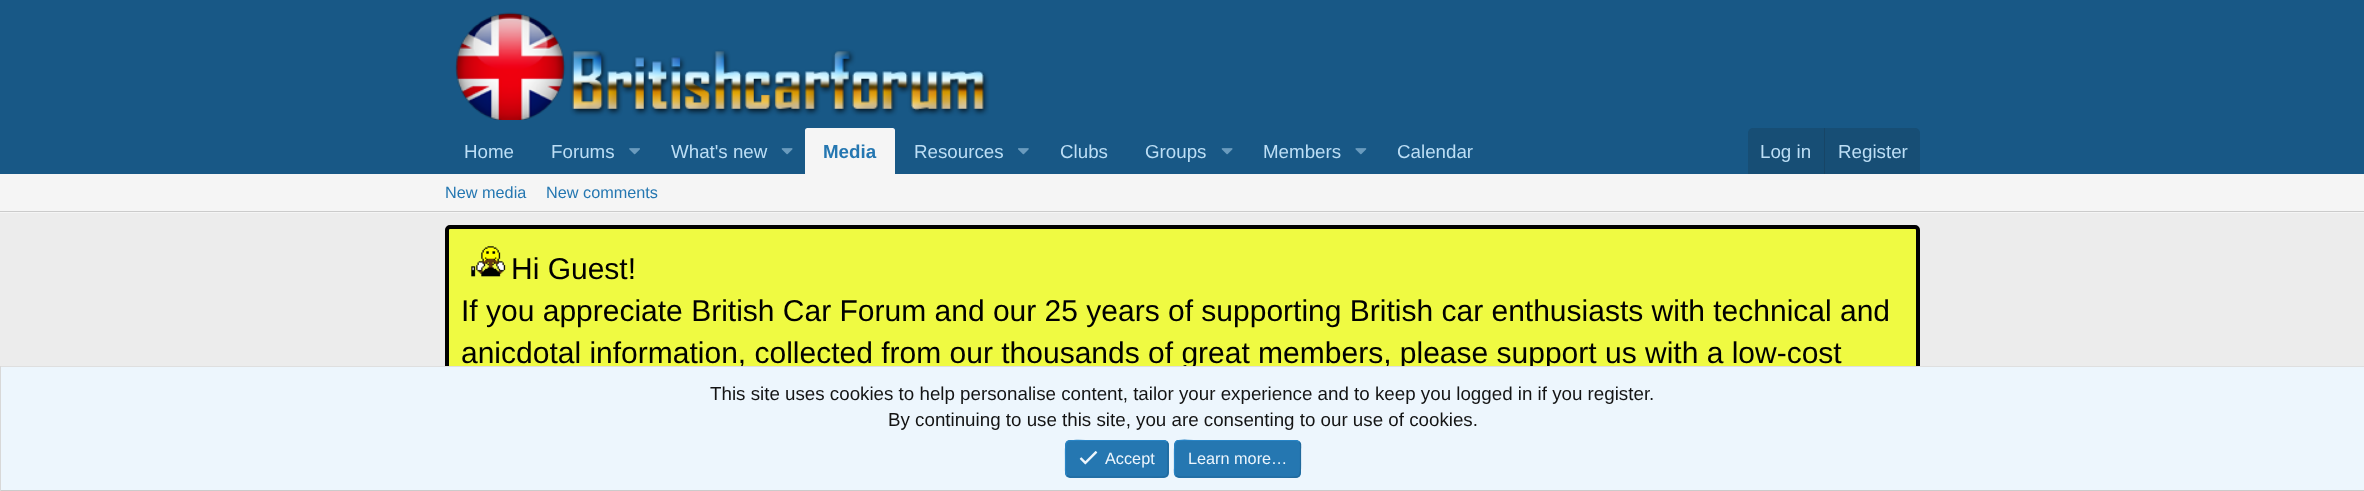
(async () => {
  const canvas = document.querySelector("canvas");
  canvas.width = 2364;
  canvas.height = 491;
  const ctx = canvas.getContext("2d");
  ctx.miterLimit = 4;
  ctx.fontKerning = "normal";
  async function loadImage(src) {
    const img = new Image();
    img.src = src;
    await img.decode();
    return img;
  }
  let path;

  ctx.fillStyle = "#ececec";
  ctx.fillRect(0, 0, 2364, 491);
  ctx.fillStyle = "#185886";
  ctx.fillRect(0, 0, 2364, 174);
  ctx.drawImage(await loadImage("img/1.png"), 455, 12, 534, 108);
  ctx.drawImage(await loadImage("img/2.png"), 629, 148, 11, 7);
  ctx.drawImage(await loadImage("img/3.png"), 781, 148, 12, 7);
  ctx.fillStyle = "#f5f5f5";
  ctx.beginPath();
  ctx.roundRect(805, 128, 90, 46, [2.5, 2.5, 0, 0]);
  ctx.fill();
  ctx.drawImage(await loadImage("img/4.png"), 1018, 148, 11, 7);
  ctx.drawImage(await loadImage("img/3.png"), 1221, 148, 12, 7);
  ctx.drawImage(await loadImage("img/5.png"), 1355, 148, 12, 7);
  ctx.fillStyle = "#174e75";
  ctx.beginPath();
  ctx.roundRect(1748, 128, 172, 46, [5, 5, 0, 0]);
  ctx.fill();
  for (const [x, y, w, h, color] of [
    [1824, 128, 1, 46, "#174566"],
    [0, 174, 2364, 39, "#f5f5f5"],
    [0, 211, 2364, 1, "#cbcbcb"],
  ]) {
    ctx.fillStyle = color;
    ctx.fillRect(x, y, w, h);
  }
  ctx.fillStyle = "#effa42";
  ctx.beginPath();
  ctx.roundRect(447, 227, 1471, 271, 3);
  ctx.fill();
  ctx.strokeStyle = "#000000";
  ctx.lineWidth = 4;
  ctx.stroke();
  ctx.drawImage(await loadImage("img/6.png"), 471, 246, 35, 31);
  ctx.fillStyle = "#cbcbcb";
  ctx.fillRect(0, 490, 2364, 1);
  ctx.font = "18.75px Liberation Sans";
  ctx.fillStyle = "#bcdef5";
  for (const [text, x, y] of [
    ["Home", 464, 158],
    ["Forums", 551, 158],
    ["What's new", 671, 158],
  ]) {
    ctx.fillText(text, x, y);
  }
  ctx.font = "bold 18.75px Liberation Sans";
  ctx.fillStyle = "#2577b1";
  ctx.fillText("Media", 823, 158);
  ctx.font = "18.75px Liberation Sans";
  ctx.fillStyle = "#bcdef5";
  for (const [text, x, y] of [
    ["Resources", 914, 158],
    ["Clubs", 1060, 158],
    ["Groups", 1145, 158],
    ["Members", 1263, 158],
    ["Calendar", 1397, 158],
    ["Log in", 1760, 158],
    ["Register", 1838, 158],
  ]) {
    ctx.fillText(text, x, y);
  }
  ctx.font = "16.25px Liberation Sans";
  ctx.fillStyle = "#2577b1";
  ctx.fillText("New media", 445, 198);
  ctx.fillText("New comments", 546, 198);
  ctx.font = "30px Liberation Sans";
  ctx.fillStyle = "#000000";
  for (const [text, x, y] of [
    ["Hi Guest!", 511, 279],
    ["If you appreciate British Car Forum and our 25 years of supporting British car enthusiasts with technical and", 461, 321],
    ["anicdotal information, collected from our thousands of great members, please support us with a low-cost", 461, 363],
  ]) {
    ctx.fillText(text, x, y);
  }
  for (const [x, y, w, h, color] of [
    [1, 367, 2363, 123, "#edf6fd"],
    [0, 366, 2364, 1, "#dfdfdf"],
    [0, 366, 1, 125, "#d8d8d8"],
  ]) {
    ctx.fillStyle = color;
    ctx.fillRect(x, y, w, h);
  }
  ctx.font = "18.75px Liberation Sans";
  ctx.fillStyle = "#141414";
  ctx.fillText("This site uses cookies to help personalise content, tailor your experience and to keep you logged in if you register.", 710, 400);
  ctx.fillText("By continuing to use this site, you are consenting to our use of cookies.", 888, 426);
  ctx.fillStyle = "#2577b1";
  ctx.beginPath();
  ctx.roundRect(1065, 440, 104, 38, 5);
  ctx.fill();
  path = new Path2D("M1167 442C1169 444 1168 447 1168 449.5V459C1168 480 1171 477 1148 477H1070L1067 475.5");
  ctx.strokeStyle = "#21699c";
  ctx.lineWidth = 1.2;
  ctx.stroke(path);
  path = new Path2D("M1067 475.5C1065 473.5 1065.5 470.5 1065.5 468V459C1065.5 437.5 1063 440.5 1085.5 440.5H1164L1167 442");
  ctx.strokeStyle = "#2985c6";
  ctx.stroke(path);
  ctx.drawImage(await loadImage("img/7.png"), 1079, 451, 19, 14);
  ctx.font = "16.25px Liberation Sans";
  ctx.fillStyle = "#edf6fd";
  ctx.fillText("Accept", 1105, 464);
  ctx.fillStyle = "#2577b1";
  ctx.beginPath();
  ctx.roundRect(1174, 440, 127, 38, 5);
  ctx.fill();
  path = new Path2D("M1299.5 442C1301.5 444 1300.5 447 1300.5 449.5V459C1300.5 481.5 1303 477 1276.5 477H1179L1175.5 475.5");
  ctx.strokeStyle = "#21699c";
  ctx.stroke(path);
  path = new Path2D("M1175.5 475.5C1173.5 473.5 1174.5 470.5 1174.5 468V459C1174.5 436 1172 440.5 1198.5 440.5H1296L1299.5 442");
  ctx.strokeStyle = "#2985c6";
  ctx.stroke(path);
  ctx.fillStyle = "#edf6fd";
  ctx.fillText("Learn more…", 1188, 464);
})();
